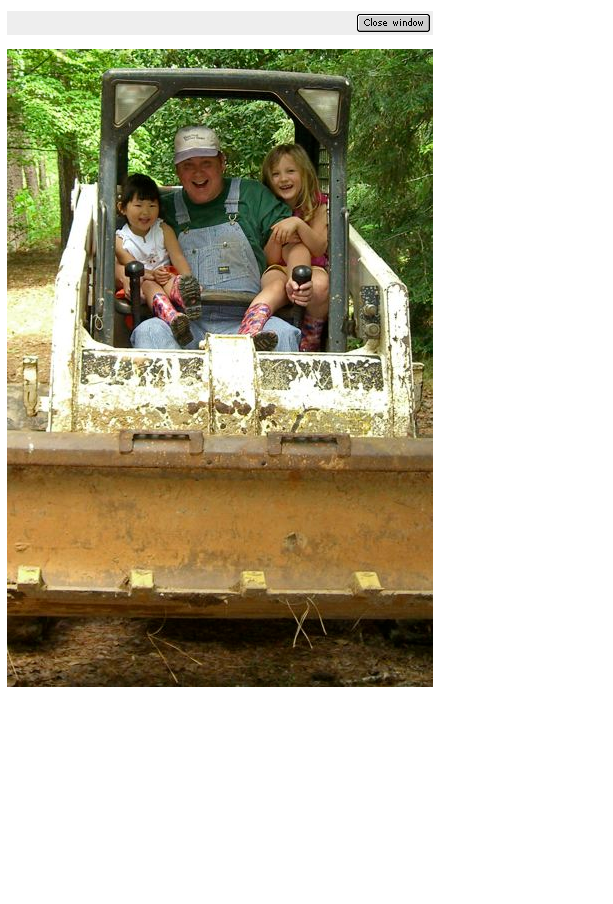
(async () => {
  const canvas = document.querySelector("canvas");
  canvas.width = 613;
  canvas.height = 904;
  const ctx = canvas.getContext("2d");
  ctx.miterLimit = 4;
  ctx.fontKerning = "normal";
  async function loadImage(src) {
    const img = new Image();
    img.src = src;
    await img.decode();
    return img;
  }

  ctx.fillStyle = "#ffffff";
  ctx.fillRect(0, 0, 613, 904);
  ctx.fillStyle = "#eeeeee";
  ctx.fillRect(7, 11, 426, 24);
  ctx.drawImage(await loadImage("img/1.png"), 357, 14, 73, 18);
  ctx.drawImage(await loadImage("img/2.png"), 7, 49, 426, 638);
})();
